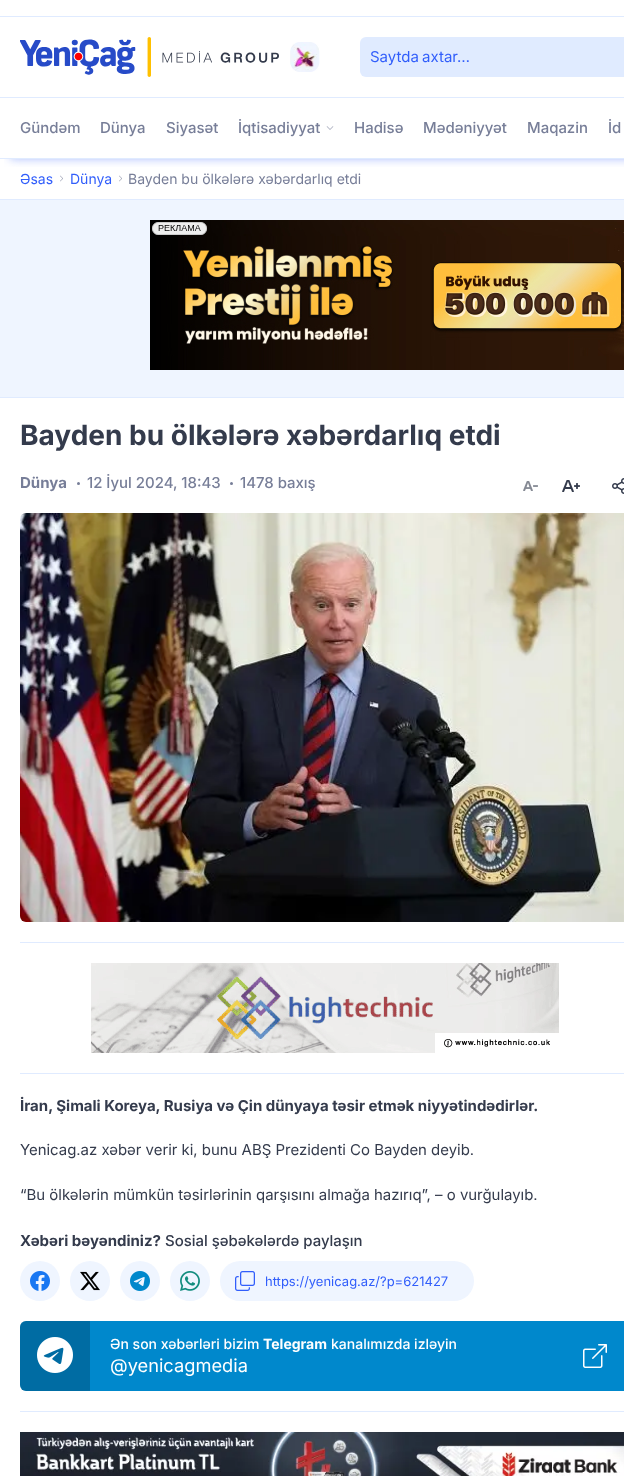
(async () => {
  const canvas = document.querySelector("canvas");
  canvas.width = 624;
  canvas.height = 1476;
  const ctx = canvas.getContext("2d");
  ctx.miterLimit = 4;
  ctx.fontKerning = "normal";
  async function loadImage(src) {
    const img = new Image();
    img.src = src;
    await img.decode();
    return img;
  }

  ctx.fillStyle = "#ffffff";
  ctx.fillRect(0, 0, 624, 1476);
  ctx.save();
  ctx.beginPath();
  ctx.rect(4, 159, 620, 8);
  ctx.clip();
  ctx.fillStyle = "rgba(49, 94, 251, 0.4)";
  ctx.filter = "blur(5px)";
  ctx.beginPath();
  ctx.rect(10, -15, 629, 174);
  ctx.fill();
  ctx.filter = "none";
  ctx.restore();
  ctx.fillStyle = "#e0ebff";
  ctx.fillRect(0, 16, 624, 1);
  ctx.fillRect(0, 97, 624, 1);
  ctx.drawImage(await loadImage("img/1.png"), 20, 37, 259, 40);
  ctx.drawImage(await loadImage("img/2.png"), 290, 42, 30, 30);
  ctx.beginPath();
  ctx.roundRect(360, 37, 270, 40, 6);
  ctx.fill();
  ctx.fillRect(0, 158, 624, 1);
  ctx.drawImage(await loadImage("img/3.png"), 326, 126, 8, 4);
  ctx.fillRect(0, 199, 624, 1);
  ctx.drawImage(await loadImage("img/4.png"), 60, 175, 3, 7);
  ctx.drawImage(await loadImage("img/4.png"), 119, 175, 3, 7);
  ctx.fillStyle = "#eff5ff";
  ctx.fillRect(0, 200, 624, 197);
  ctx.fillStyle = "#e0ebff";
  ctx.fillRect(0, 397, 624, 1);
  ctx.drawImage(await loadImage("img/5.png"), 150, 220, 474, 150);
  ctx.fillStyle = "#777e98";
  ctx.beginPath();
  ctx.arc(78.5, 483.5, 1.5, 0, Math.PI * 2);
  ctx.fill();
  ctx.beginPath();
  ctx.arc(231.5, 483.5, 1.5, 0, Math.PI * 2);
  ctx.fill();
  ctx.drawImage(await loadImage("img/6.png"), 523, 481, 15, 10);
  ctx.drawImage(await loadImage("img/7.png"), 562, 480, 18, 12);
  ctx.drawImage(await loadImage("img/8.png"), 612, 478, 12, 16);
  ctx.drawImage(await loadImage("img/9.png"), 20, 513, 604, 409);
  ctx.fillStyle = "#e0ebff";
  ctx.fillRect(20, 942, 604, 1);
  ctx.fillRect(20, 1073, 604, 1);
  ctx.drawImage(await loadImage("img/10.png"), 91, 963, 468, 90);
  ctx.fillStyle = "#eff5ff";
  ctx.beginPath();
  ctx.arc(40, 1281, 20, 0, Math.PI * 2);
  ctx.fill();
  ctx.drawImage(await loadImage("img/11.png"), 30, 1271, 20, 20);
  ctx.beginPath();
  ctx.arc(90, 1281, 20, 0, Math.PI * 2);
  ctx.fill();
  ctx.drawImage(await loadImage("img/12.png"), 80, 1271, 20, 20);
  ctx.beginPath();
  ctx.arc(140, 1281, 20, 0, Math.PI * 2);
  ctx.fill();
  ctx.drawImage(await loadImage("img/13.png"), 130, 1271, 20, 20);
  ctx.beginPath();
  ctx.arc(190, 1281, 20, 0, Math.PI * 2);
  ctx.fill();
  ctx.drawImage(await loadImage("img/14.png"), 180, 1271, 20, 20);
  ctx.beginPath();
  ctx.roundRect(220, 1261, 254, 40, 20);
  ctx.fill();
  ctx.drawImage(await loadImage("img/15.png"), 235, 1271, 20, 20);
  ctx.fillStyle = "#0088cc";
  ctx.beginPath();
  ctx.roundRect(20, 1321, 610, 70, 6);
  ctx.fill();
  ctx.fillStyle = "rgba(0, 0, 0, 0.2)";
  ctx.beginPath();
  ctx.roundRect(20, 1321, 70, 70, [6, 0, 0, 6]);
  ctx.fill();
  ctx.drawImage(await loadImage("img/16.png"), 37, 1337, 36, 36);
  ctx.drawImage(await loadImage("img/17.png"), 583, 1344, 24, 24);
  ctx.fillStyle = "#e0ebff";
  ctx.fillRect(20, 1411, 604, 1);
  ctx.drawImage(await loadImage("img/18.png"), 20, 1432, 604, 44);
  ctx.wordSpacing = "-1px";
  ctx.font = "15px Inter";
  ctx.fillStyle = "#315efb";
  ctx.fillText("Saytda axtar…", 370, 62);
  ctx.wordSpacing = "0px";
  ctx.font = "500 15px Inter";
  ctx.fillStyle = "#777e98";
  for (const [text, x, y] of [
    ["Gündəm", 20, 133],
    ["Dünya", 100, 133],
    ["Siyasət", 166, 133],
    ["İqtisadiyyat", 238, 133],
    ["Hadisə", 354, 133],
    ["Mədəniyyət", 423, 133],
    ["Maqazin", 527, 133],
    ["İd", 608, 133],
  ]) {
    ctx.fillText(text, x, y);
  }
  ctx.font = "14px Inter";
  ctx.fillStyle = "#315efb";
  ctx.fillText("Əsas", 20, 184);
  ctx.fillText("Dünya", 70, 184);
  ctx.fillStyle = "#777e98";
  ctx.fillText("Bayden bu ölkələrə xəbərdarlıq etdi", 128, 184);
  ctx.font = "bold 28px Inter";
  ctx.fillStyle = "#343b4c";
  ctx.fillText("Bayden bu ölkələrə xəbərdarlıq etdi", 20, 445);
  ctx.font = "bold 15px Inter";
  ctx.fillStyle = "#777e98";
  ctx.fillText("Dünya", 20, 488);
  ctx.font = "500 15px Inter";
  ctx.fillText("12 İyul 2024, 18:43", 87, 488);
  ctx.fillText("1478 baxış", 240, 488);
  ctx.font = "bold 15px Inter";
  ctx.fillStyle = "#343b4c";
  ctx.fillText("İran, Şimali Koreya, Rusiya və Çin dünyaya təsir etmək niyyətindədirlər.", 20, 1111);
  ctx.font = "15px 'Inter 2'";
  ctx.fillText("Yenicag.az xəbər verir ki, bunu ABŞ Prezidenti Co Bayden deyib.", 20, 1155);
  ctx.fillText("“Bu ölkələrin mümkün təsirlərinin qarşısını almağa hazırıq”, – o vurğulayıb.", 20, 1200);
  ctx.font = "bold 15px Inter";
  ctx.fillText("Xəbəri bəyəndiniz?", 20, 1246);
  ctx.font = "500 15px Inter";
  ctx.fillText("Sosial şəbəkələrdə paylaşın", 165, 1246);
  ctx.font = "13px Inter";
  ctx.fillStyle = "#315efb";
  ctx.fillText("https://yenicag.az/?p=621427", 265, 1286);
  ctx.font = "500 14px 'Inter 2'";
  ctx.fillStyle = "#ffffff";
  ctx.fillText("Ən son xəbərləri bizim", 110, 1349);
  ctx.font = "bold 14px Inter";
  ctx.fillText("Telegram", 263, 1349);
  ctx.font = "500 14px 'Inter 2'";
  ctx.fillText("kanalımızda izləyin", 331, 1349);
  ctx.font = "18.25px Inter";
  ctx.fillText("@yenicagmedia", 110, 1372);
})();
